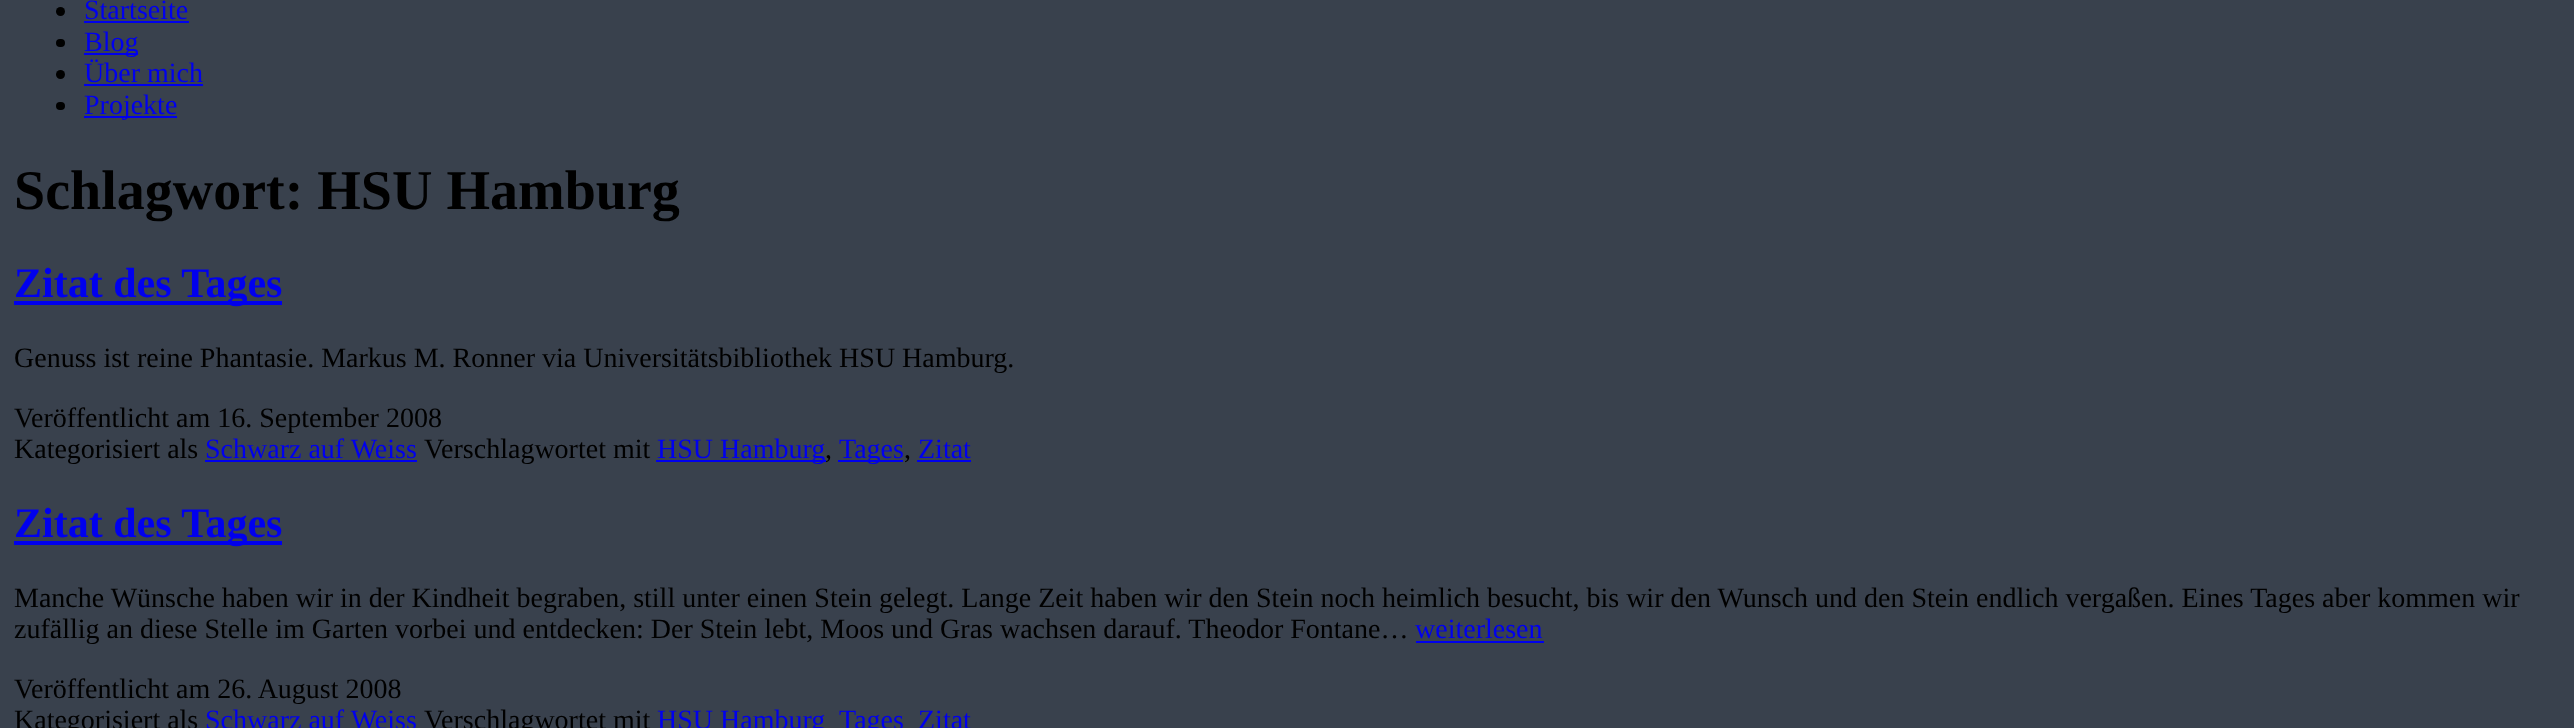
(async () => {
  const canvas = document.querySelector("canvas");
  canvas.width = 2574;
  canvas.height = 728;
  const ctx = canvas.getContext("2d");
  ctx.miterLimit = 4;
  ctx.fontKerning = "normal";

  ctx.fillStyle = "#39414d";
  ctx.fillRect(0, 0, 2574, 728);
  ctx.fillStyle = "#000000";
  ctx.beginPath();
  ctx.arc(60.5, 11.5, 4.5, 0, Math.PI * 2);
  ctx.fill();
  ctx.fillStyle = "#0000ee";
  ctx.fillRect(84, 21, 105, 2);
  ctx.fillStyle = "#000000";
  ctx.beginPath();
  ctx.roundRect(56, 39, 9, 8, 4);
  ctx.fill();
  ctx.fillStyle = "#0000ee";
  ctx.fillRect(84, 53, 54, 2);
  ctx.fillStyle = "#000000";
  ctx.beginPath();
  ctx.arc(60.5, 74.5, 4.5, 0, Math.PI * 2);
  ctx.fill();
  ctx.fillStyle = "#0000ee";
  ctx.fillRect(84, 84, 119, 2);
  ctx.fillStyle = "#000000";
  ctx.beginPath();
  ctx.roundRect(56, 102, 9, 8, 4);
  ctx.fill();
  for (const [x, y, w, h, color] of [
    [84, 116, 93, 2, "#0000ee"],
    [14, 301, 268, 4, "#0000ee"],
    [205, 460, 212, 2, "#0000ee"],
    [656, 460, 170, 2, "#0000ee"],
    [838, 460, 65, 2, "#0000ee"],
    [917, 460, 54, 2, "#0000ee"],
    [14, 541, 268, 4, "#0000ee"],
    [1416, 641, 128, 2, "#0000ee"],
  ]) {
    ctx.fillStyle = color;
    ctx.fillRect(x, y, w, h);
  }
  ctx.font = "28px Liberation Serif";
  for (const [text, x, y] of [
    ["Startseite", 84, 19],
    ["Blog", 84, 51],
    ["Über mich", 84, 82],
    ["Projekte", 84, 114],
  ]) {
    ctx.fillText(text, x, y);
  }
  ctx.font = "bold 56px Liberation Serif";
  ctx.fillStyle = "#000000";
  ctx.fillText("Schlagwort: HSU Hamburg", 14, 209);
  ctx.font = "bold 42px Liberation Serif";
  ctx.fillStyle = "#0000ee";
  ctx.fillText("Zitat des Tages", 14, 297);
  ctx.font = "28px Liberation Serif";
  ctx.fillStyle = "#000000";
  for (const [text, x, y] of [
    ["Genuss ist reine Phantasie. Markus M. Ronner via Universitätsbibliothek HSU Hamburg.", 14, 367],
    ["Veröffentlicht am 16. September 2008", 14, 427],
    ["Kategorisiert als", 14, 458],
  ]) {
    ctx.fillText(text, x, y);
  }
  ctx.fillStyle = "#0000ee";
  ctx.fillText("Schwarz auf Weiss", 205, 458);
  ctx.fillStyle = "#000000";
  ctx.fillText("Verschlagwortet mit", 424, 458);
  ctx.fillStyle = "#0000ee";
  ctx.fillText("HSU Hamburg", 657, 458);
  ctx.fillStyle = "#000000";
  ctx.fillText(",", 825, 458);
  ctx.fillStyle = "#0000ee";
  ctx.fillText("Tages", 839, 458);
  ctx.fillStyle = "#000000";
  ctx.fillText(",", 904, 458);
  ctx.fillStyle = "#0000ee";
  ctx.fillText("Zitat", 918, 458);
  ctx.font = "bold 42px Liberation Serif";
  ctx.fillText("Zitat des Tages", 14, 537);
  ctx.font = "28px Liberation Serif";
  ctx.fillStyle = "#000000";
  ctx.fillText("Manche Wünsche haben wir in der Kindheit begraben, still unter einen Stein gelegt. Lange Zeit haben wir den Stein noch heimlich besucht, bis wir den Wunsch und den Stein endlich vergaßen. Eines Tages aber kommen wir", 14, 607);
  ctx.fillText("zufällig an diese Stelle im Garten vorbei und entdecken: Der Stein lebt, Moos und Gras wachsen darauf. Theodor Fontane…", 14, 638);
  ctx.fillStyle = "#0000ee";
  ctx.fillText("weiterlesen", 1415, 638);
  ctx.fillStyle = "#000000";
  ctx.fillText("Veröffentlicht am 26. August 2008", 14, 698);
  ctx.fillText("Kategorisiert als", 14, 729);
  ctx.fillStyle = "#0000ee";
  ctx.fillText("Schwarz auf Weiss", 205, 729);
  ctx.fillStyle = "#000000";
  ctx.fillText("Verschlagwortet mit", 424, 729);
  ctx.fillStyle = "#0000ee";
  for (const [text, x, y] of [
    ["HSU Hamburg", 657, 729],
    ["Tages", 839, 729],
    ["Zitat", 918, 729],
  ]) {
    ctx.fillText(text, x, y);
  }
})();
